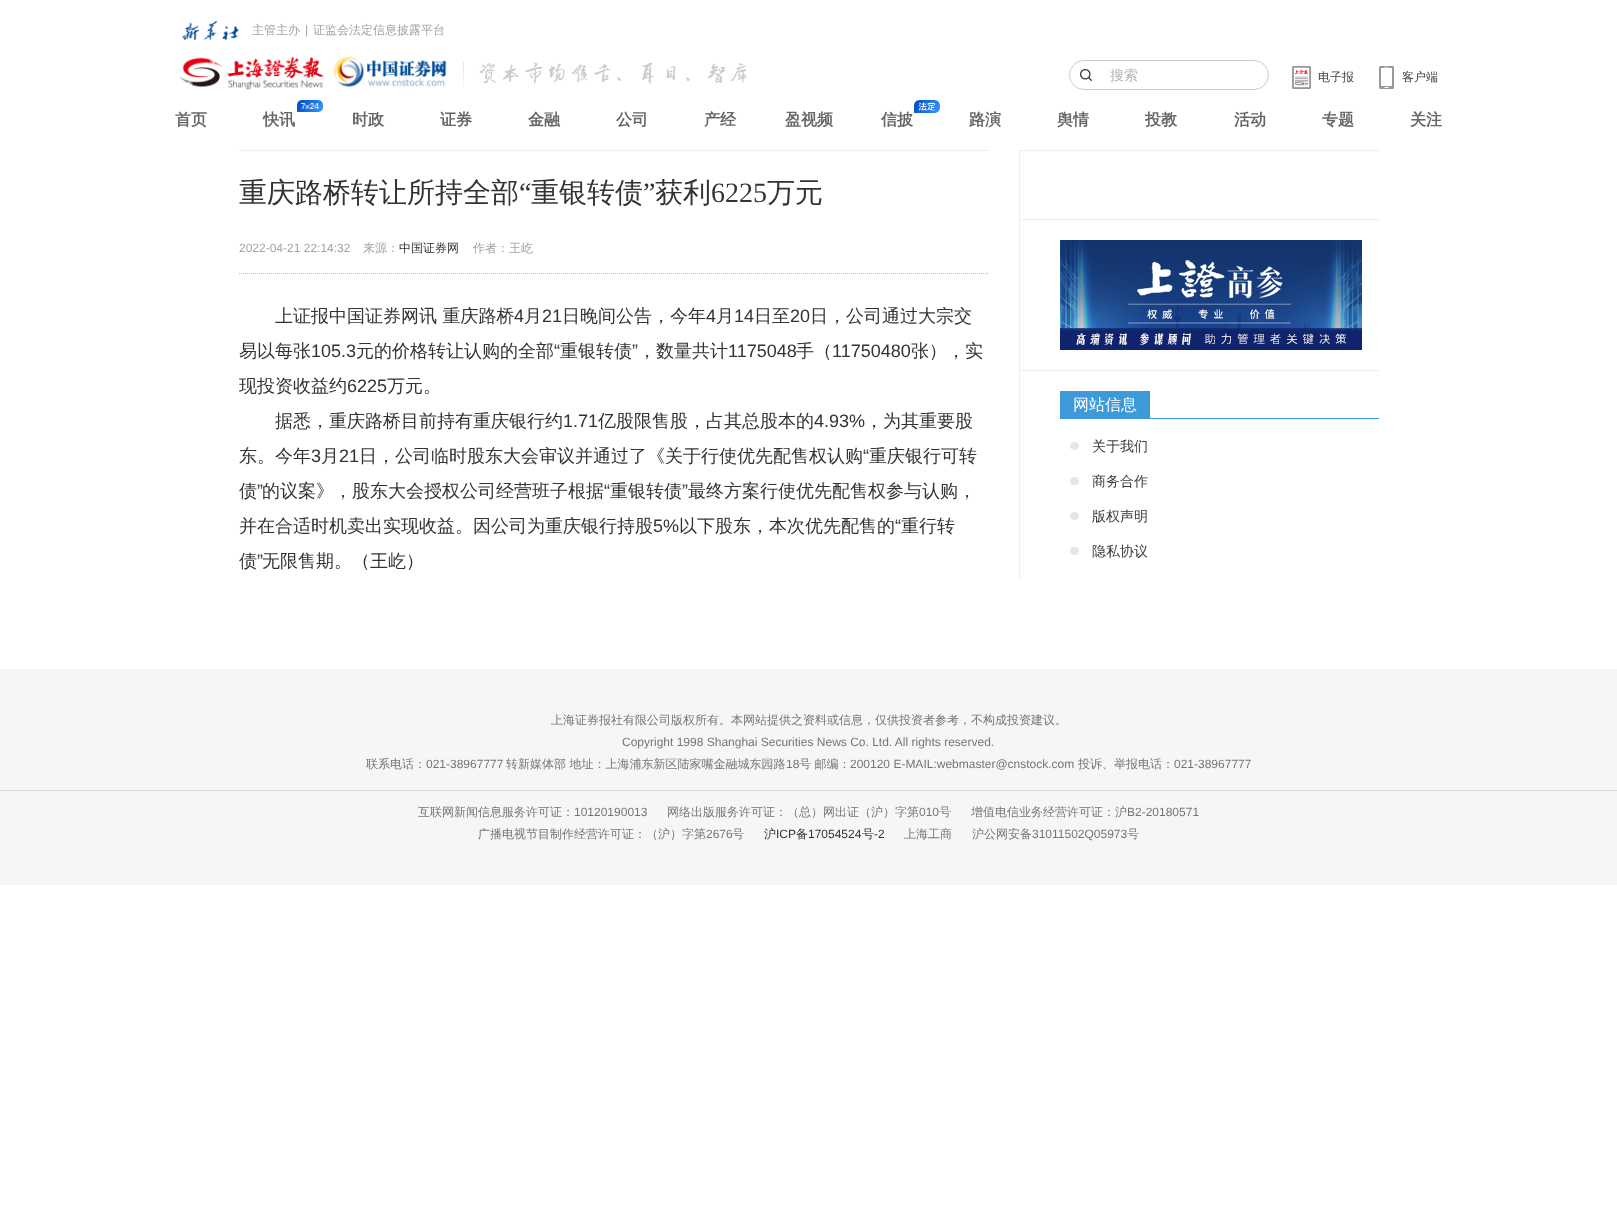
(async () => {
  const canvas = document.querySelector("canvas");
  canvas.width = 1617;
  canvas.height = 1230;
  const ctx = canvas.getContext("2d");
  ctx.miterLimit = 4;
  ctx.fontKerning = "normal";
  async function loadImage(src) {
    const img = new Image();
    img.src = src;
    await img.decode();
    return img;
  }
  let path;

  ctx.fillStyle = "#ffffff";
  ctx.fillRect(0, 0, 1617, 1230);
  ctx.drawImage(await loadImage("img/1.png"), 182, 21, 57, 19);
  ctx.drawImage(await loadImage("img/2.png"), 180, 56, 267, 34);
  ctx.drawImage(await loadImage("img/3.png"), 463, 62, 284, 25);
  ctx.drawImage(await loadImage("img/4.png"), 1080, 69, 12, 12);
  ctx.beginPath();
  ctx.roundRect(1069.5, 60.5, 199, 29, 14.5);
  ctx.strokeStyle = "#cccccc";
  ctx.stroke();
  ctx.drawImage(await loadImage("img/5.png"), 1292, 66, 19, 23);
  ctx.drawImage(await loadImage("img/6.png"), 1379, 66, 15, 23);
  ctx.drawImage(await loadImage("img/7.png"), 297, 100, 26, 12);
  ctx.drawImage(await loadImage("img/8.png"), 914, 100, 26, 13);
  ctx.fillStyle = "#eeeeee";
  ctx.fillRect(239, 150, 750, 1);
  path = new Path2D("M239 273.5H989");
  ctx.strokeStyle = "#bebebe";
  ctx.setLineDash([1, 1]);
  ctx.stroke(path);
  for (const [x, y, w, h, color] of [
    [1019, 150, 1, 429, "#eeeeee"],
    [1020, 150, 359, 1, "#eeeeee"],
    [1020, 219, 359, 1, "#eeeeee"],
  ]) {
    ctx.fillStyle = color;
    ctx.fillRect(x, y, w, h);
  }
  ctx.drawImage(await loadImage("img/9.png"), 1060, 240, 302, 110);
  for (const [x, y, w, h, color] of [
    [1020, 370, 359, 1, "#eeeeee"],
    [1150, 418, 229, 1, "#3d99d8"],
    [1060, 391, 90, 28, "#3d99d8"],
  ]) {
    ctx.fillStyle = color;
    ctx.fillRect(x, y, w, h);
  }
  ctx.drawImage(await loadImage("img/10.png"), 1070, 442, 9, 8);
  ctx.drawImage(await loadImage("img/10.png"), 1070, 477, 9, 8);
  ctx.drawImage(await loadImage("img/10.png"), 1070, 512, 9, 8);
  ctx.drawImage(await loadImage("img/10.png"), 1070, 547, 9, 8);
  ctx.fillStyle = "#f6f6f6";
  ctx.fillRect(0, 669, 1617, 216);
  ctx.fillStyle = "#dcdcdc";
  ctx.fillRect(0, 790, 1617, 1);
  ctx.font = "500 12px WenQuanYi Zen Hei";
  ctx.fillStyle = "#a2a2a2";
  ctx.fillText("主管主办", 252, 34);
  ctx.font = "12px Liberation Sans";
  ctx.fillText("|", 305, 34);
  ctx.font = "500 12px WenQuanYi Zen Hei";
  ctx.fillText("证监会法定信息披露平台", 313, 34);
  ctx.font = "500 14px WenQuanYi Zen Hei";
  ctx.fillStyle = "#b3b3b3";
  ctx.fillText("搜索", 1110, 80);
  ctx.font = "500 12px WenQuanYi Zen Hei";
  ctx.fillStyle = "#414141";
  ctx.fillText("电子报", 1318, 81);
  ctx.fillText("客户端", 1402, 81);
  ctx.font = "bold 16px WenQuanYi Zen Hei";
  ctx.fillStyle = "#666666";
  for (const [text, x, y] of [
    ["首页", 175, 125],
    ["快讯", 263, 125],
    ["时政", 352, 125],
    ["证券", 440, 125],
    ["金融", 528, 125],
    ["公司", 616, 125],
    ["产经", 704, 125],
    ["盈视频", 785, 125],
    ["信披", 881, 125],
    ["路演", 969, 125],
    ["舆情", 1057, 125],
    ["投教", 1145, 125],
    ["活动", 1234, 125],
    ["专题", 1322, 125],
    ["关注", 1410, 125],
  ]) {
    ctx.fillText(text, x, y);
  }
  ctx.font = "500 28px WenQuanYi Zen Hei";
  ctx.fillStyle = "#333333";
  ctx.fillText("重庆路桥转让所持全部", 239, 202);
  ctx.font = "28px Liberation Serif";
  ctx.fillText("“", 519, 202);
  ctx.font = "500 28px WenQuanYi Zen Hei";
  ctx.fillText("重银转债", 531, 202);
  ctx.font = "28px Liberation Serif";
  ctx.fillText("”", 643, 202);
  ctx.font = "500 28px WenQuanYi Zen Hei";
  ctx.fillText("获利", 655, 202);
  ctx.font = "28px Liberation Serif";
  ctx.fillText("6225", 711, 202);
  ctx.font = "500 28px WenQuanYi Zen Hei";
  ctx.fillText("万元", 767, 202);
  ctx.font = "12px Liberation Sans";
  ctx.fillStyle = "#a2a2a2";
  ctx.fillText("2022-04-21 22:14:32", 239, 252);
  ctx.font = "500 12px WenQuanYi Zen Hei";
  ctx.fillText("来源：", 363, 252);
  ctx.fillStyle = "#333333";
  ctx.fillText("中国证券网", 399, 252);
  ctx.fillStyle = "#a2a2a2";
  ctx.fillText("作者：王屹", 473, 252);
  ctx.font = "500 18px WenQuanYi Zen Hei";
  ctx.fillStyle = "#333333";
  ctx.fillText("上证报中国证券网讯 重庆路桥", 275, 322);
  ctx.font = "18px Liberation Sans";
  ctx.fillText("4", 514, 322);
  ctx.font = "500 18px WenQuanYi Zen Hei";
  ctx.fillText("月", 524, 322);
  ctx.font = "18px Liberation Sans";
  ctx.fillText("21", 542, 322);
  ctx.font = "500 18px WenQuanYi Zen Hei";
  ctx.fillText("日晚间公告，今年", 562, 322);
  ctx.font = "18px Liberation Sans";
  ctx.fillText("4", 706, 322);
  ctx.font = "500 18px WenQuanYi Zen Hei";
  ctx.fillText("月", 716, 322);
  ctx.font = "18px Liberation Sans";
  ctx.fillText("14", 734, 322);
  ctx.font = "500 18px WenQuanYi Zen Hei";
  ctx.fillText("日至", 754, 322);
  ctx.font = "18px Liberation Sans";
  ctx.fillText("20", 790, 322);
  ctx.font = "500 18px WenQuanYi Zen Hei";
  ctx.fillText("日，公司通过大宗交", 810, 322);
  ctx.fillText("易以每张", 239, 357);
  ctx.font = "18px Liberation Sans";
  ctx.fillText("105.3", 311, 357);
  ctx.font = "500 18px WenQuanYi Zen Hei";
  ctx.fillText("元的价格转让认购的全部", 356, 357);
  ctx.font = "18px Liberation Sans";
  ctx.fillText("“", 554, 357);
  ctx.font = "500 18px WenQuanYi Zen Hei";
  ctx.fillText("重银转债", 560, 357);
  ctx.font = "18px Liberation Sans";
  ctx.fillText("”", 632, 357);
  ctx.font = "500 18px WenQuanYi Zen Hei";
  ctx.fillText("，数量共计", 638, 357);
  ctx.font = "18px Liberation Sans";
  ctx.fillText("1175048", 728, 357);
  ctx.font = "500 18px WenQuanYi Zen Hei";
  ctx.fillText("手（", 796, 357);
  ctx.font = "18px Liberation Sans";
  ctx.fillText("11750480", 832, 357);
  ctx.font = "500 18px WenQuanYi Zen Hei";
  ctx.fillText("张），实", 911, 357);
  ctx.fillText("现投资收益约", 239, 392);
  ctx.font = "18px Liberation Sans";
  ctx.fillText("6225", 347, 392);
  ctx.font = "500 18px WenQuanYi Zen Hei";
  ctx.fillText("万元。", 387, 392);
  ctx.fillText("据悉，重庆路桥目前持有重庆银行约", 275, 427);
  ctx.font = "18px Liberation Sans";
  ctx.fillText("1.71", 563, 427);
  ctx.font = "500 18px WenQuanYi Zen Hei";
  ctx.fillText("亿股限售股，占其总股本的", 598, 427);
  ctx.font = "18px Liberation Sans";
  ctx.fillText("4.93%", 814, 427);
  ctx.font = "500 18px WenQuanYi Zen Hei";
  ctx.fillText("，为其重要股", 865, 427);
  ctx.fillText("东。今年", 239, 462);
  ctx.font = "18px Liberation Sans";
  ctx.fillText("3", 311, 462);
  ctx.font = "500 18px WenQuanYi Zen Hei";
  ctx.fillText("月", 321, 462);
  ctx.font = "18px Liberation Sans";
  ctx.fillText("21", 339, 462);
  ctx.font = "500 18px WenQuanYi Zen Hei";
  ctx.fillText("日，公司临时股东大会审议并通过了《关于行使优先配售权认购", 359, 462);
  ctx.font = "18px Liberation Sans";
  ctx.fillText("“", 863, 462);
  ctx.font = "500 18px WenQuanYi Zen Hei";
  ctx.fillText("重庆银行可转", 869, 462);
  ctx.fillText("债", 239, 497);
  ctx.font = "18px Liberation Sans";
  ctx.fillText("”", 257, 497);
  ctx.font = "500 18px WenQuanYi Zen Hei";
  ctx.fillText("的议案》，股东大会授权公司经营班子根据", 262, 497);
  ctx.font = "18px Liberation Sans";
  ctx.fillText("“", 604, 497);
  ctx.font = "500 18px WenQuanYi Zen Hei";
  ctx.fillText("重银转债", 610, 497);
  ctx.font = "18px Liberation Sans";
  ctx.fillText("”", 682, 497);
  ctx.font = "500 18px WenQuanYi Zen Hei";
  ctx.fillText("最终方案行使优先配售权参与认购，", 688, 497);
  ctx.fillText("并在合适时机卖出实现收益。因公司为重庆银行持股", 239, 532);
  ctx.font = "18px Liberation Sans";
  ctx.fillText("5%", 653, 532);
  ctx.font = "500 18px WenQuanYi Zen Hei";
  ctx.fillText("以下股东，本次优先配售的", 679, 532);
  ctx.font = "18px Liberation Sans";
  ctx.fillText("“", 895, 532);
  ctx.font = "500 18px WenQuanYi Zen Hei";
  ctx.fillText("重行转", 901, 532);
  ctx.fillText("债", 239, 567);
  ctx.font = "18px Liberation Sans";
  ctx.fillText("”", 257, 567);
  ctx.font = "500 18px WenQuanYi Zen Hei";
  ctx.fillText("无限售期。（王屹）", 262, 567);
  ctx.font = "500 16px WenQuanYi Zen Hei";
  ctx.fillStyle = "#ffffff";
  ctx.fillText("网站信息", 1073, 410);
  ctx.font = "500 14px WenQuanYi Zen Hei";
  ctx.fillStyle = "#3a3a3a";
  for (const [text, x, y] of [
    ["关于我们", 1092, 451],
    ["商务合作", 1092, 486],
    ["版权声明", 1092, 521],
    ["隐私协议", 1092, 556],
  ]) {
    ctx.fillText(text, x, y);
  }
  ctx.font = "500 12px WenQuanYi Zen Hei";
  ctx.fillStyle = "#757575";
  ctx.fillText("上海证券报社有限公司版权所有。本网站提供之资料或信息，仅供投资者参考，不构成投资建议。", 551, 724);
  ctx.font = "12px Liberation Sans";
  ctx.fillText("Copyright 1998 Shanghai Securities News Co. Ltd. All rights reserved.", 622, 746);
  ctx.font = "500 12px WenQuanYi Zen Hei";
  ctx.fillText("联系电话：", 366, 768);
  ctx.font = "12px Liberation Sans";
  ctx.fillText("021-38967777", 426, 768);
  ctx.font = "500 12px WenQuanYi Zen Hei";
  ctx.fillText("转新媒体部 地址：上海浦东新区陆家嘴金融城东园路", 506, 768);
  ctx.font = "12px Liberation Sans";
  ctx.fillText("18", 786, 768);
  ctx.font = "500 12px WenQuanYi Zen Hei";
  ctx.fillText("号 邮编：", 799, 768);
  ctx.font = "12px Liberation Sans";
  ctx.fillText("200120 E-MAIL:webmaster@cnstock.com", 850, 768);
  ctx.font = "500 12px WenQuanYi Zen Hei";
  ctx.fillText("投诉、举报电话：", 1078, 768);
  ctx.font = "12px Liberation Sans";
  ctx.fillText("021-38967777", 1174, 768);
  ctx.font = "500 12px WenQuanYi Zen Hei";
  ctx.fillText("互联网新闻信息服务许可证：", 418, 816);
  ctx.font = "12px Liberation Sans";
  ctx.fillText("10120190013", 574, 816);
  ctx.font = "500 12px WenQuanYi Zen Hei";
  ctx.fillText("网络出版服务许可证：（总）网出证（沪）字第", 667, 816);
  ctx.font = "12px Liberation Sans";
  ctx.fillText("010", 919, 816);
  ctx.font = "500 12px WenQuanYi Zen Hei";
  ctx.fillText("号", 939, 816);
  ctx.fillText("增值电信业务经营许可证：沪", 971, 816);
  ctx.font = "12px Liberation Sans";
  ctx.fillText("B2-20180571", 1127, 816);
  ctx.font = "500 12px WenQuanYi Zen Hei";
  ctx.fillText("广播电视节目制作经营许可证：（沪）字第", 478, 838);
  ctx.font = "12px Liberation Sans";
  ctx.fillText("2676", 706, 838);
  ctx.font = "500 12px WenQuanYi Zen Hei";
  ctx.fillText("号", 732, 838);
  ctx.fillStyle = "#333333";
  ctx.fillText("沪", 764, 838);
  ctx.font = "12px Liberation Sans";
  ctx.fillText("ICP", 776, 838);
  ctx.font = "500 12px WenQuanYi Zen Hei";
  ctx.fillText("备", 796, 838);
  ctx.font = "12px Liberation Sans";
  ctx.fillText("17054524", 808, 838);
  ctx.font = "500 12px WenQuanYi Zen Hei";
  ctx.fillText("号", 862, 838);
  ctx.font = "12px Liberation Sans";
  ctx.fillText("-2", 874, 838);
  ctx.font = "500 12px WenQuanYi Zen Hei";
  ctx.fillStyle = "#757575";
  ctx.fillText("上海工商", 904, 838);
  ctx.fillText("沪公网安备", 972, 838);
  ctx.font = "12px Liberation Sans";
  ctx.fillText("31011502Q05973", 1032, 838);
  ctx.font = "500 12px WenQuanYi Zen Hei";
  ctx.fillText("号", 1127, 838);
})();
